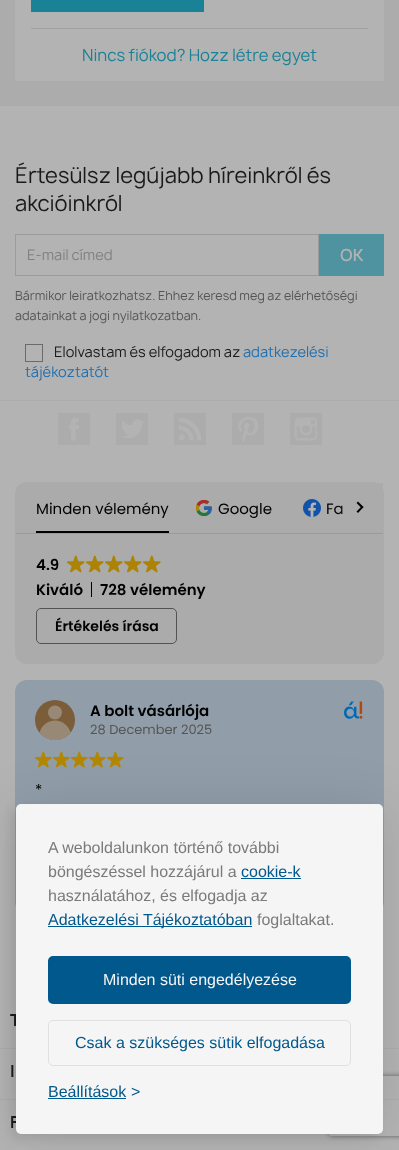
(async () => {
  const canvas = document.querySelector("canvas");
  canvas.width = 399;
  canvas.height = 1150;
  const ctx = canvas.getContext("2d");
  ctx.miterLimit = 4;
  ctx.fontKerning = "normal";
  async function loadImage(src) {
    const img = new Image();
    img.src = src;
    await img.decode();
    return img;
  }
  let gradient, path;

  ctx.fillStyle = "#b3b3b3";
  ctx.fillRect(0, 0, 399, 1150);
  for (const [x, y, w, h, color] of [
    [0, 0, 399, 106, "#acacac"],
    [15, 0, 369, 81, "#b3b3b3"],
    [31, 0, 173, 12, "#198297"],
    [31, 28, 337, 1, "#a1a1a1"],
    [0, 400, 399, 1, "#acacac"],
  ]) {
    ctx.fillStyle = color;
    ctx.fillRect(x, y, w, h);
  }
  ctx.strokeStyle = "#9b9b9b";
  ctx.strokeRect(15.5, 234.5, 303, 41);
  ctx.fillStyle = "#4f93a0";
  ctx.fillRect(319, 234, 65, 42);
  ctx.strokeStyle = "#6a6a6a";
  ctx.strokeRect(25.5, 344.5, 17, 17);
  ctx.fillStyle = "#acacac";
  ctx.fillRect(58, 413, 32, 32);
  ctx.drawImage(await loadImage("img/1.png"), 69, 418, 10, 23);
  ctx.fillRect(116, 413, 32, 32);
  ctx.drawImage(await loadImage("img/2.png"), 122, 419, 22, 19);
  ctx.fillRect(174, 413, 32, 32);
  ctx.drawImage(await loadImage("img/3.png"), 179, 418, 22, 23);
  ctx.fillRect(232, 413, 32, 32);
  ctx.drawImage(await loadImage("img/4.png"), 238, 417, 20, 25);
  ctx.fillRect(290, 413, 32, 32);
  ctx.drawImage(await loadImage("img/5.png"), 294, 417, 23, 24);
  ctx.fillStyle = "#ababab";
  ctx.beginPath();
  ctx.roundRect(15, 482, 369, 182, 12);
  ctx.fill();
  ctx.fillStyle = "#000000";
  ctx.fillRect(36, 531, 133, 2);
  ctx.drawImage(await loadImage("img/6.png"), 195, 499, 17, 18);
  ctx.drawImage(await loadImage("img/7.png"), 303, 499, 18, 18);
  ctx.fillStyle = "#9a9a9a";
  ctx.fillRect(16, 533, 367, 1);
  ctx.drawImage(await loadImage("img/8.png"), 67, 555, 18, 18);
  ctx.drawImage(await loadImage("img/8.png"), 86, 555, 18, 18);
  ctx.drawImage(await loadImage("img/8.png"), 105, 555, 18, 18);
  ctx.drawImage(await loadImage("img/8.png"), 124, 555, 18, 18);
  ctx.drawImage(await loadImage("img/8.png"), 143, 555, 18, 18);
  ctx.fillStyle = "#000000";
  ctx.fillRect(91, 582, 1, 15);
  ctx.beginPath();
  ctx.roundRect(36.5, 608.5, 140, 35, 4.5);
  ctx.strokeStyle = "#535353";
  ctx.stroke();
  ctx.fillStyle = "#919eaa";
  ctx.beginPath();
  ctx.roundRect(15, 680, 369, 234, 12);
  ctx.fill();
  ctx.fillStyle = "#7b5e39";
  ctx.beginPath();
  ctx.arc(55, 720, 20, 0, Math.PI * 2);
  ctx.fill();
  ctx.fillStyle = "#978976";
  ctx.beginPath();
  ctx.arc(55, 712.5, 7, 0, Math.PI * 2);
  ctx.fill();
  ctx.fillStyle = "rgba(179, 179, 179, 0.5)";
  path = new Path2D("M55 720.5C62.5 720.5 68.5 725.5 70.5 732.5C63 742.5 47 742.5 39.5 732.5C41.5 725.5 47.5 720.5 55 720.5Z");
  ctx.fill(path);
  ctx.drawImage(await loadImage("img/9.png"), 344, 701, 19, 18);
  ctx.drawImage(await loadImage("img/10.png"), 35, 751, 17, 17);
  ctx.drawImage(await loadImage("img/10.png"), 53, 751, 17, 17);
  ctx.drawImage(await loadImage("img/10.png"), 71, 751, 17, 17);
  ctx.drawImage(await loadImage("img/10.png"), 89, 751, 17, 17);
  ctx.drawImage(await loadImage("img/10.png"), 107, 751, 17, 17);
  ctx.fillStyle = "#acacac";
  ctx.fillRect(0, 1048, 399, 1);
  ctx.fillRect(0, 1099, 399, 1);
  ctx.fillStyle = "rgba(0, 0, 0, 0.1)";
  ctx.filter = "blur(25px)";
  ctx.beginPath();
  ctx.roundRect(16, 804, 367, 330, 5);
  ctx.fill();
  ctx.filter = "none";
  ctx.fillStyle = "rgba(0, 0, 0, 0.07)";
  ctx.filter = "blur(5px)";
  ctx.beginPath();
  ctx.roundRect(11, 809, 367, 330, 5);
  ctx.fill();
  ctx.filter = "none";
  ctx.save();
  path = new Path2D("M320 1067H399V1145H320ZM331 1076H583C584 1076 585 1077 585 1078V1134C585 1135 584 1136 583 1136H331C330 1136 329 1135 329 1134V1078C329 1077 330 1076 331 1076Z");
  ctx.clip(path, "evenodd");
  ctx.fillStyle = "#5a5a5a";
  ctx.filter = "blur(2.5px)";
  ctx.beginPath();
  ctx.roundRect(329, 1076, 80, 60, 2);
  ctx.fill();
  ctx.filter = "none";
  ctx.restore();
  ctx.font = "16px Manrope";
  ctx.fillStyle = "#198297";
  ctx.fillText("Nincs fiókod? Hozz létre egyet", 82, 61);
  ctx.font = "21px Manrope";
  ctx.fillStyle = "#191919";
  ctx.fillText("Értesülsz legújabb híreinkről és", 15, 183);
  ctx.fillText("akcióinkról", 15, 211);
  ctx.font = "14px Manrope";
  ctx.fillStyle = "#808080";
  ctx.fillText("E-mail címed", 27, 260);
  ctx.font = "600 16px Manrope";
  ctx.fillStyle = "#b3b3b3";
  ctx.fillText("OK", 340, 261);
  ctx.font = "12px Manrope";
  ctx.fillStyle = "#555555";
  ctx.fillText("Bármikor leiratkozhatsz. Ehhez keresd meg az elérhetőségi", 15, 300);
  ctx.fillText("adatainkat a jogi nyilatkozatban.", 15, 320);
  ctx.font = "14px Manrope";
  ctx.fillStyle = "#191919";
  ctx.fillText("Elolvastam és elfogadom az", 54, 357);
  ctx.fillStyle = "#1f6fb1";
  ctx.fillText("adatkezelési", 243, 357);
  ctx.fillText("tájékoztatót", 25, 377);
  ctx.font = "15px Poppins";
  ctx.fillStyle = "#000000";
  for (const [text, x, y] of [
    ["Minden vélemény", 36, 514],
    ["Google", 218, 514],
    ["Fa", 326, 514],
  ]) {
    ctx.fillText(text, x, y);
  }
  gradient = ctx.createLinearGradient(383, 508, 333, 508);
  gradient.addColorStop(0.67, "#ababab");
  gradient.addColorStop(0.85, "rgba(171, 171, 171, 0)");
  ctx.fillStyle = gradient;
  ctx.fillRect(341, 483, 42, 31);
  ctx.fillStyle = "#000000";
  path = new Path2D("M363.5 507L358 513L356.5 511.5L362 506Z");
  ctx.fill(path);
  path = new Path2D("M363.5 507L362 508.5L356.5 503L358 501.5Z");
  ctx.fill(path);
  ctx.font = "600 15px Poppins";
  for (const [text, x, y] of [
    ["4.9", 36, 570],
    ["Kiváló", 36, 595],
    ["728 vélemény", 100, 595],
  ]) {
    ctx.fillText(text, x, y);
  }
  ctx.font = "600 14px Poppins";
  ctx.fillText("Értékelés írása", 55, 631);
  ctx.font = "600 15px Poppins";
  ctx.fillText("A bolt vásárlója", 90, 716);
  ctx.font = "13px Poppins";
  ctx.fillStyle = "#555555";
  ctx.fillText("28 December 2025", 90, 734);
  ctx.font = "15px Poppins";
  ctx.fillStyle = "#000000";
  ctx.fillText("*", 35, 795);
  ctx.font = "bold 16px Manrope";
  ctx.fillStyle = "#191919";
  for (const [text, x, y] of [
    ["T", 10, 1026],
    ["I", 10, 1077],
    ["F", 10, 1128],
  ]) {
    ctx.fillText(text, x, y);
  }
  ctx.fillStyle = "#f5f5f5";
  ctx.beginPath();
  ctx.roundRect(16, 804, 367, 330, 5);
  ctx.fill();
  ctx.font = "16px Liberation Sans";
  ctx.fillStyle = "#7a7a7a";
  ctx.fillText("A weboldalunkon történő további", 48, 853);
  ctx.fillText("böngészéssel hozzájárul a", 48, 877);
  ctx.fillStyle = "#01588d";
  ctx.fillText("cookie-k", 241, 877);
  ctx.fillRect(241, 878, 60, 1);
  ctx.fillStyle = "#7a7a7a";
  ctx.fillText("használatához, és elfogadja az", 48, 901);
  ctx.fillStyle = "#01588d";
  ctx.fillRect(48, 926, 204, 1);
  ctx.fillText("Adatkezelési Tájékoztatóban", 48, 925);
  ctx.fillStyle = "#7a7a7a";
  ctx.fillText("foglaltakat.", 257, 925);
  ctx.fillStyle = "#01588d";
  ctx.beginPath();
  ctx.roundRect(49, 957, 301, 46, 4);
  ctx.fill();
  ctx.strokeStyle = "#01588d";
  ctx.lineWidth = 2;
  ctx.stroke();
  ctx.fillStyle = "#f5f5f5";
  ctx.fillText("Minden süti engedélyezése", 103, 985);
  ctx.beginPath();
  ctx.roundRect(48.5, 1020.5, 302, 45, 4.5);
  ctx.strokeStyle = "#e0e0e0";
  ctx.lineWidth = 1;
  ctx.stroke();
  ctx.fillStyle = "#01588d";
  ctx.fillText("Csak a szükséges sütik elfogadása", 75, 1048);
  ctx.fillText("Beállítások", 48, 1097);
  ctx.fillRect(48, 1098, 78, 1);
  ctx.fillText(">", 131, 1097);
})();
